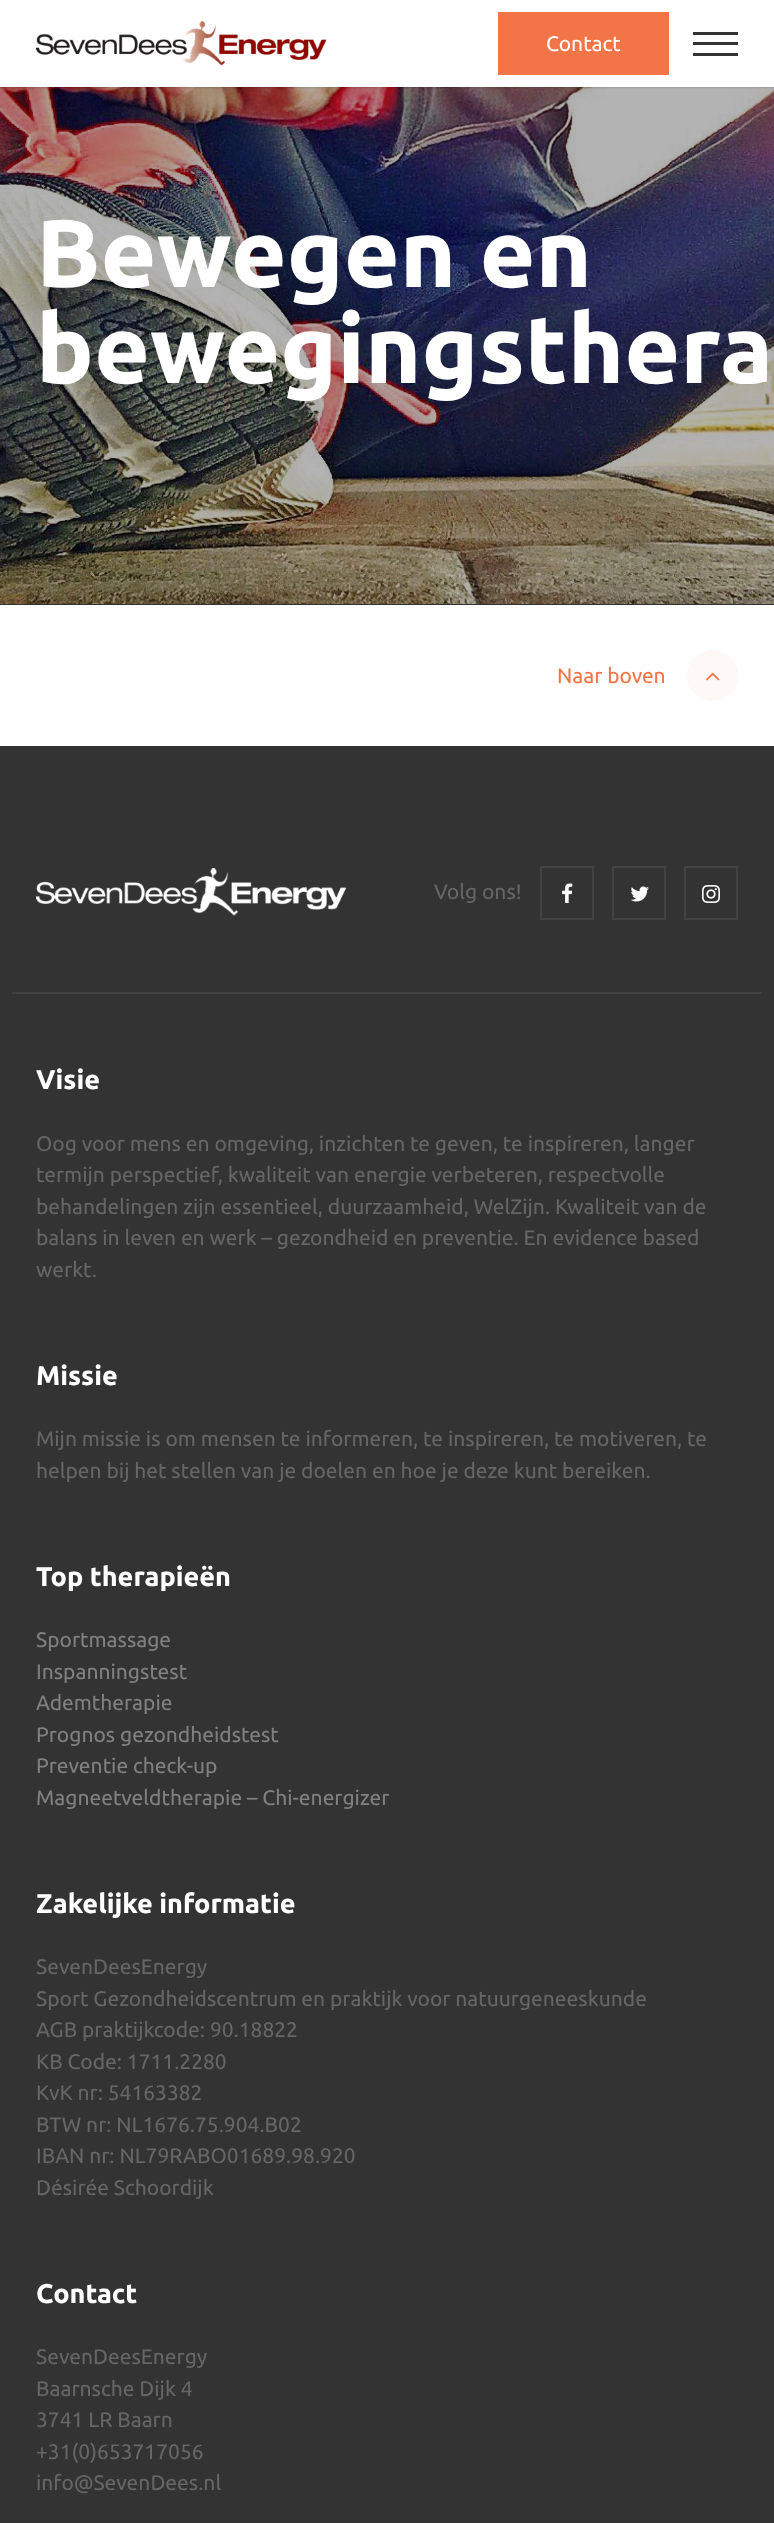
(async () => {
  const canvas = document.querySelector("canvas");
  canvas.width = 774;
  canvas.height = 2523;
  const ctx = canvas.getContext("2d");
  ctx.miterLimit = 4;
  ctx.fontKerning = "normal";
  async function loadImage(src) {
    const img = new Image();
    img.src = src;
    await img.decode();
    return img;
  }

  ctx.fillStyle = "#ffffff";
  ctx.fillRect(0, 0, 774, 2523);
  ctx.drawImage(await loadImage("img/2.png"), 0, 87, 774, 517);
  ctx.fillStyle = "rgba(0, 0, 0, 0.25)";
  ctx.filter = "blur(1.5px)";
  ctx.beginPath();
  ctx.rect(0, 0, 774, 87);
  ctx.fill();
  ctx.filter = "none";
  ctx.fillStyle = "#ffffff";
  ctx.fillRect(0, 0, 774, 87);
  ctx.drawImage(await loadImage("img/1.png"), 36, 21, 291, 45);
  for (const [x, y, w, h, color] of [
    [498, 12, 171, 63, "#f37547"],
    [693, 32, 45, 3, "#333333"],
    [693, 42, 45, 3, "#333333"],
    [693, 53, 45, 3, "#333333"],
    [0, 604, 774, 1, "#333333"],
  ]) {
    ctx.fillStyle = color;
    ctx.fillRect(x, y, w, h);
  }
  ctx.fillStyle = "#fef8f6";
  ctx.beginPath();
  ctx.arc(712.5, 675.5, 25.5, 0, Math.PI * 2);
  ctx.fill();
  ctx.drawImage(await loadImage("img/3.png"), 706, 672, 14, 9);
  ctx.fillStyle = "#333333";
  ctx.fillRect(0, 746, 774, 1777);
  ctx.fillStyle = "#424242";
  ctx.fillRect(12, 992, 750, 2);
  ctx.drawImage(await loadImage("img/4.png"), 36, 868, 311, 48);
  ctx.strokeStyle = "#424242";
  ctx.lineWidth = 2;
  ctx.strokeRect(541, 867, 52, 52);
  ctx.drawImage(await loadImage("img/5.png"), 562, 883, 11, 20);
  ctx.strokeRect(613, 867, 52, 52);
  ctx.drawImage(await loadImage("img/6.png"), 630, 886, 19, 16);
  ctx.strokeRect(685, 867, 52, 52);
  ctx.drawImage(await loadImage("img/7.png"), 702, 885, 18, 18);
  ctx.font = "21px Ubuntu";
  ctx.fillStyle = "#ffffff";
  ctx.fillText("Contact", 546, 51);
  ctx.font = "bold 96px Ubuntu";
  ctx.fillText("Bewegen en", 36, 287);
  ctx.fillText("bewegingsthera", 36, 383);
  ctx.font = "21px Ubuntu";
  ctx.fillStyle = "#f37547";
  ctx.fillText("Naar boven", 557, 683);
  ctx.fillStyle = "#666666";
  ctx.fillText("Volg ons!", 434, 899);
  ctx.font = "bold 27px Ubuntu";
  ctx.fillStyle = "#ffffff";
  ctx.fillText("Visie", 36, 1089);
  ctx.font = "21px Ubuntu";
  ctx.fillStyle = "#666666";
  for (const [text, x, y] of [
    ["Oog voor mens en omgeving, inzichten te geven, te inspireren, langer", 36, 1151],
    ["termijn perspectief, kwaliteit van energie verbeteren, respectvolle", 36, 1182],
    ["behandelingen zijn essentieel, duurzaamheid, WelZijn. Kwaliteit van de", 36, 1214],
    ["balans in leven en werk – gezondheid en preventie. En evidence based", 36, 1245],
    ["werkt.", 36, 1277],
  ]) {
    ctx.fillText(text, x, y);
  }
  ctx.font = "bold 27px Ubuntu";
  ctx.fillStyle = "#ffffff";
  ctx.fillText("Missie", 36, 1385);
  ctx.font = "21px Ubuntu";
  ctx.fillStyle = "#666666";
  ctx.fillText("Mijn missie is om mensen te informeren, te inspireren, te motiveren, te", 36, 1446);
  ctx.fillText("helpen bij het stellen van je doelen en hoe je deze kunt bereiken.", 36, 1478);
  ctx.font = "bold 27px Ubuntu";
  ctx.fillStyle = "#ffffff";
  ctx.fillText("Top therapieën", 36, 1586);
  ctx.font = "21px Ubuntu";
  ctx.fillStyle = "#808080";
  for (const [text, x, y] of [
    ["Sportmassage", 36, 1647],
    ["Inspanningstest", 36, 1679],
    ["Ademtherapie", 36, 1710],
    ["Prognos gezondheidstest", 36, 1742],
    ["Preventie check-up", 36, 1773],
    ["Magneetveldtherapie – Chi-energizer", 36, 1805],
  ]) {
    ctx.fillText(text, x, y);
  }
  ctx.font = "bold 27px Ubuntu";
  ctx.fillStyle = "#ffffff";
  ctx.fillText("Zakelijke informatie", 36, 1913);
  ctx.font = "21px Ubuntu";
  ctx.fillStyle = "#666666";
  for (const [text, x, y] of [
    ["SevenDeesEnergy", 36, 1974],
    ["Sport Gezondheidscentrum en praktijk voor natuurgeneeskunde", 36, 2006],
    ["AGB praktijkcode: 90.18822", 36, 2037],
    ["KB Code: 1711.2280", 36, 2069],
    ["KvK nr: 54163382", 36, 2100],
    ["BTW nr: NL1676.75.904.B02", 36, 2132],
    ["IBAN nr: NL79RABO01689.98.920", 36, 2163],
    ["Désirée Schoordijk", 36, 2195],
  ]) {
    ctx.fillText(text, x, y);
  }
  ctx.font = "bold 27px Ubuntu";
  ctx.fillStyle = "#ffffff";
  ctx.fillText("Contact", 36, 2303);
  ctx.font = "21px Ubuntu";
  ctx.fillStyle = "#666666";
  for (const [text, x, y] of [
    ["SevenDeesEnergy", 36, 2364],
    ["Baarnsche Dijk 4", 36, 2396],
    ["3741 LR Baarn", 36, 2427],
    ["+31(0)653717056", 36, 2459],
    ["info@SevenDees.nl", 36, 2490],
  ]) {
    ctx.fillText(text, x, y);
  }
})();
